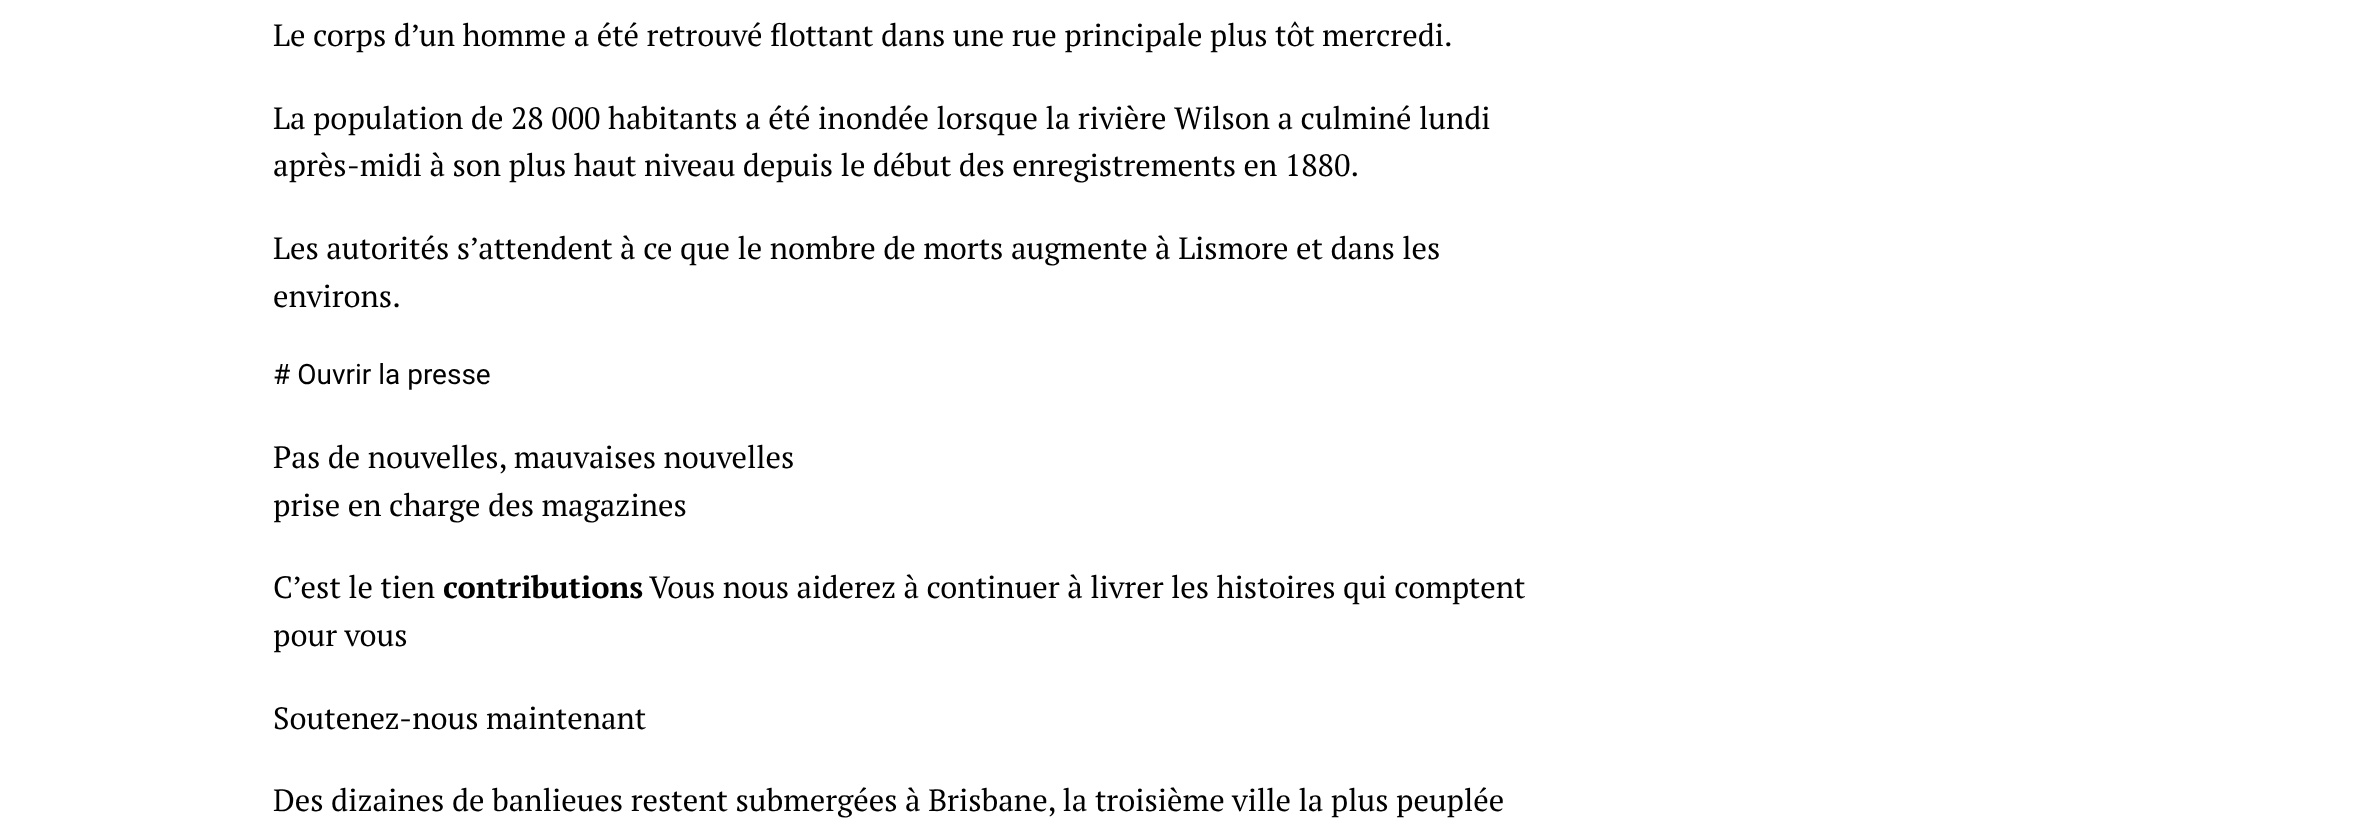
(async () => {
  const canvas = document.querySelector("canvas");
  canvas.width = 2366;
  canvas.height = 832;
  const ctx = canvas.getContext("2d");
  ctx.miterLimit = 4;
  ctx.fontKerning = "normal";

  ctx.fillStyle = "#ffffff";
  ctx.fillRect(0, 0, 2366, 832);
  ctx.font = "30.8px PT Serif";
  ctx.fillStyle = "#000000";
  for (const [text, x, y] of [
    ["Le corps d’un homme a été retrouvé flottant dans une rue principale plus tôt mercredi.", 273, 46],
    ["La population de 28 000 habitants a été inondée lorsque la rivière Wilson a culminé lundi", 273, 129],
    ["après-midi à son plus haut niveau depuis le début des enregistrements en 1880.", 273, 176],
    ["Les autorités s’attendent à ce que le nombre de morts augmente à Lismore et dans les", 273, 259],
    ["environs.", 273, 307],
  ]) {
    ctx.fillText(text, x, y);
  }
  ctx.font = "28px Roboto";
  ctx.fillText("# Ouvrir la presse", 273, 384);
  ctx.font = "30.8px PT Serif";
  for (const [text, x, y] of [
    ["Pas de nouvelles, mauvaises nouvelles", 273, 468],
    ["prise en charge des magazines", 273, 516],
    ["C’est le tien", 273, 598],
  ]) {
    ctx.fillText(text, x, y);
  }
  ctx.font = "bold 30.8px PT Serif";
  ctx.fillText("contributions", 443, 598);
  ctx.font = "30.8px PT Serif";
  for (const [text, x, y] of [
    ["Vous nous aiderez à continuer à livrer les histoires qui comptent", 649, 598],
    ["pour vous", 273, 646],
    ["Soutenez-nous maintenant", 273, 729],
    ["Des dizaines de banlieues restent submergées à Brisbane, la troisième ville la plus peuplée", 273, 811],
  ]) {
    ctx.fillText(text, x, y);
  }
})();
